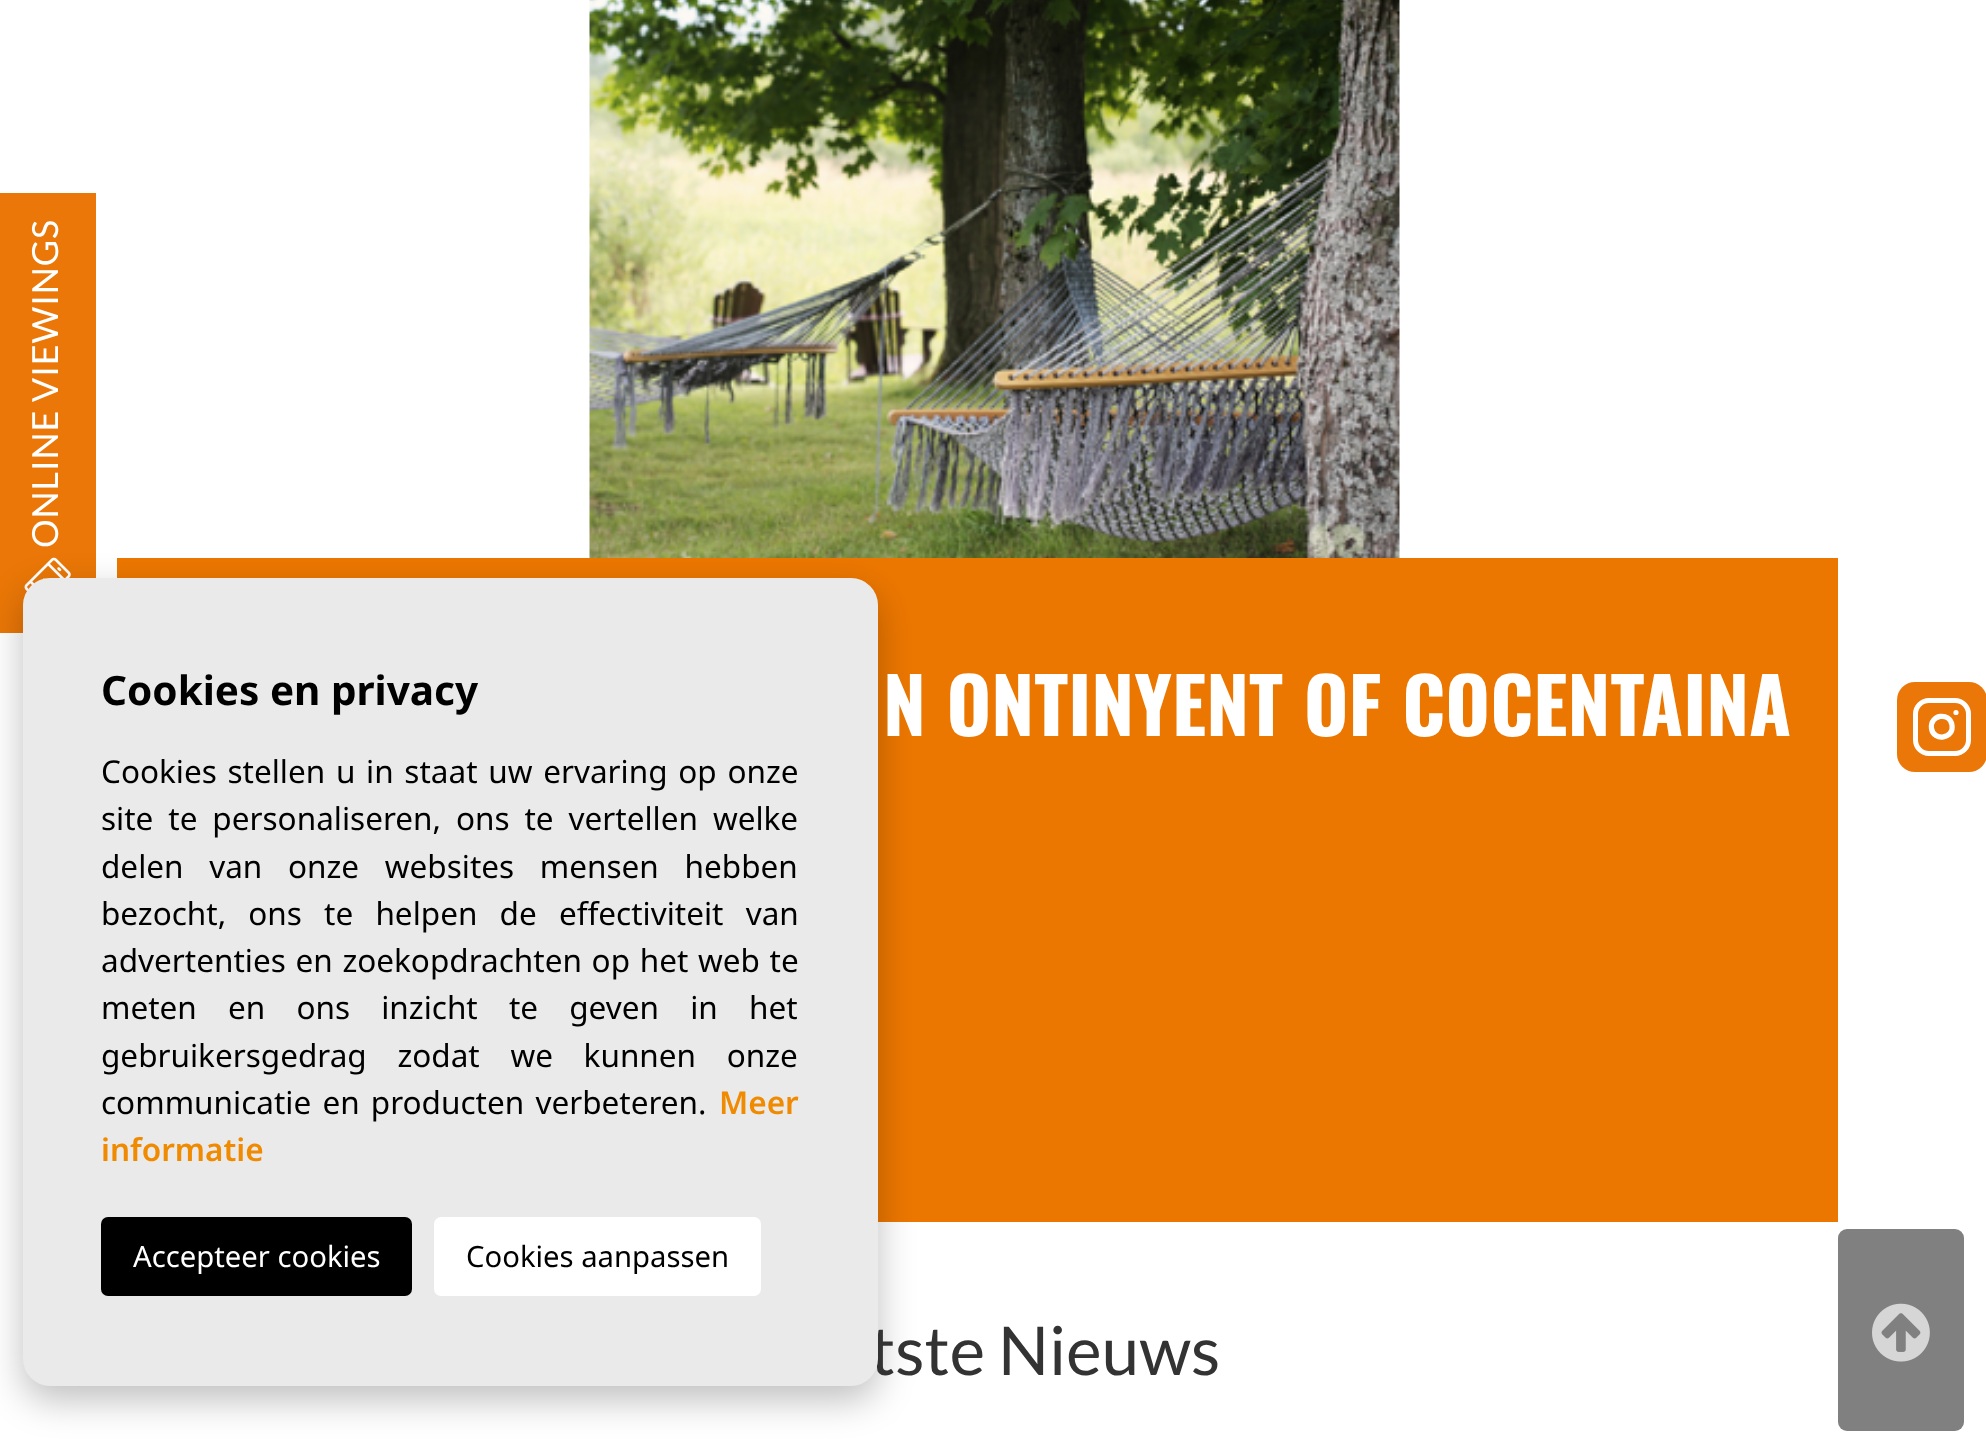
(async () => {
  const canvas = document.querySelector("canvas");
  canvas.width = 1986;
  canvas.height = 1453;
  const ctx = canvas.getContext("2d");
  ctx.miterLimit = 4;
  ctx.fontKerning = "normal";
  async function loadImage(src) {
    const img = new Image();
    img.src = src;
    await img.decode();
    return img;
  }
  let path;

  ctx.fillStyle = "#ffffff";
  ctx.fillRect(0, 0, 1986, 1453);
  ctx.fillStyle = "#ea7707";
  ctx.fillRect(0, 193, 96, 440);
  ctx.drawImage(await loadImage("img/1.png"), 24, 557, 47, 34);
  ctx.drawImage(await loadImage("img/2.png"), 589, 0, 811, 558);
  ctx.fillStyle = "#ec7700";
  ctx.fillRect(117, 558, 1721, 664);
  ctx.fillStyle = "rgba(0, 0, 0, 0.25)";
  ctx.filter = "blur(18px)";
  ctx.beginPath();
  ctx.roundRect(23, 592, 855, 808, 27);
  ctx.fill();
  ctx.filter = "none";
  ctx.fillStyle = "#ea7707";
  ctx.beginPath();
  ctx.roundRect(1897, 682, 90, 90, 18);
  ctx.fill();
  ctx.beginPath();
  ctx.roundRect(1915.5, 700.5, 53, 53, 13.5);
  ctx.strokeStyle = "#ffffff";
  ctx.lineWidth = 5;
  ctx.stroke();
  path = new Path2D("M1952 725C1954.5 738.5 1933.5 742 1931.5 728.5C1929.5 714.5 1950 711.5 1952 725ZM1956 712.5H1956");
  ctx.lineWidth = 5.2;
  ctx.lineCap = "round";
  ctx.lineJoin = "round";
  ctx.stroke(path);
  ctx.fillStyle = "#808080";
  ctx.beginPath();
  ctx.roundRect(1838, 1229, 126, 202, 9);
  ctx.fill();
  ctx.drawImage(await loadImage("img/3.png"), 1872, 1303, 58, 59);
  ctx.letterSpacing = "0.75px";
  ctx.font = "36px Lato";
  ctx.fillStyle = "#ffffff";
  ctx.save();
  ctx.translate(58, 548);
  ctx.rotate(-90 * Math.PI / 180);
  ctx.fillText("ONLINE VIEWINGS", 0, 0);
  ctx.restore();
  ctx.letterSpacing = "0px";
  ctx.wordSpacing = "1px";
  ctx.font = "bold 76.5px Oswald";
  ctx.fillText("N ONTINYENT OF COCENTAINA", 883, 736);
  ctx.wordSpacing = "0px";
  ctx.font = "67.5px Lato";
  ctx.fillStyle = "#333333";
  ctx.fillText("tste Nieuws", 870, 1375);
  ctx.fillStyle = "#eaeaea";
  ctx.beginPath();
  ctx.roundRect(23, 578, 855, 808, 27);
  ctx.fill();
  ctx.fillStyle = "#ffffff";
  ctx.beginPath();
  ctx.roundRect(434, 1217, 327, 79, 7);
  ctx.fill();
  ctx.font = "29.25px Noto Sans";
  ctx.fillStyle = "#000000";
  ctx.fillText("Cookies aanpassen", 466, 1267);
  ctx.beginPath();
  ctx.roundRect(101, 1217, 311, 79, 7);
  ctx.fill();
  ctx.fillStyle = "#ffffff";
  ctx.fillText("Accepteer cookies", 133, 1267);
  ctx.font = "600 31.5px Noto Sans";
  ctx.fillStyle = "#f08a00";
  ctx.fillText("informatie", 101, 1161);
  ctx.fillText("Meer", 719, 1114);
  ctx.wordSpacing = "3px";
  ctx.font = "31.5px Noto Sans";
  ctx.fillStyle = "#000000";
  ctx.fillText("communicatie en producten verbeteren.", 101, 1114);
  ctx.wordSpacing = "22.5px";
  ctx.fillText("gebruikersgedrag zodat we kunnen onze", 101, 1067);
  ctx.wordSpacing = "23px";
  ctx.fillText("meten en ons inzicht te geven in het", 101, 1019);
  ctx.wordSpacing = "1.5px";
  ctx.fillText("advertenties en zoekopdrachten op het web te", 101, 972);
  ctx.wordSpacing = "14px";
  ctx.fillText("bezocht, ons te helpen de effectiviteit van", 101, 925);
  ctx.wordSpacing = "17.5px";
  ctx.fillText("delen van onze websites mensen hebben", 101, 878);
  ctx.wordSpacing = "6.75px";
  ctx.fillText("site te personaliseren, ons te vertellen welke", 101, 830);
  ctx.wordSpacing = "2.5px";
  ctx.fillText("Cookies stellen u in staat uw ervaring op onze", 101, 783);
  ctx.wordSpacing = "0px";
  ctx.font = "bold 40.5px Noto Sans";
  ctx.fillText("Cookies en privacy", 101, 705);
})();
